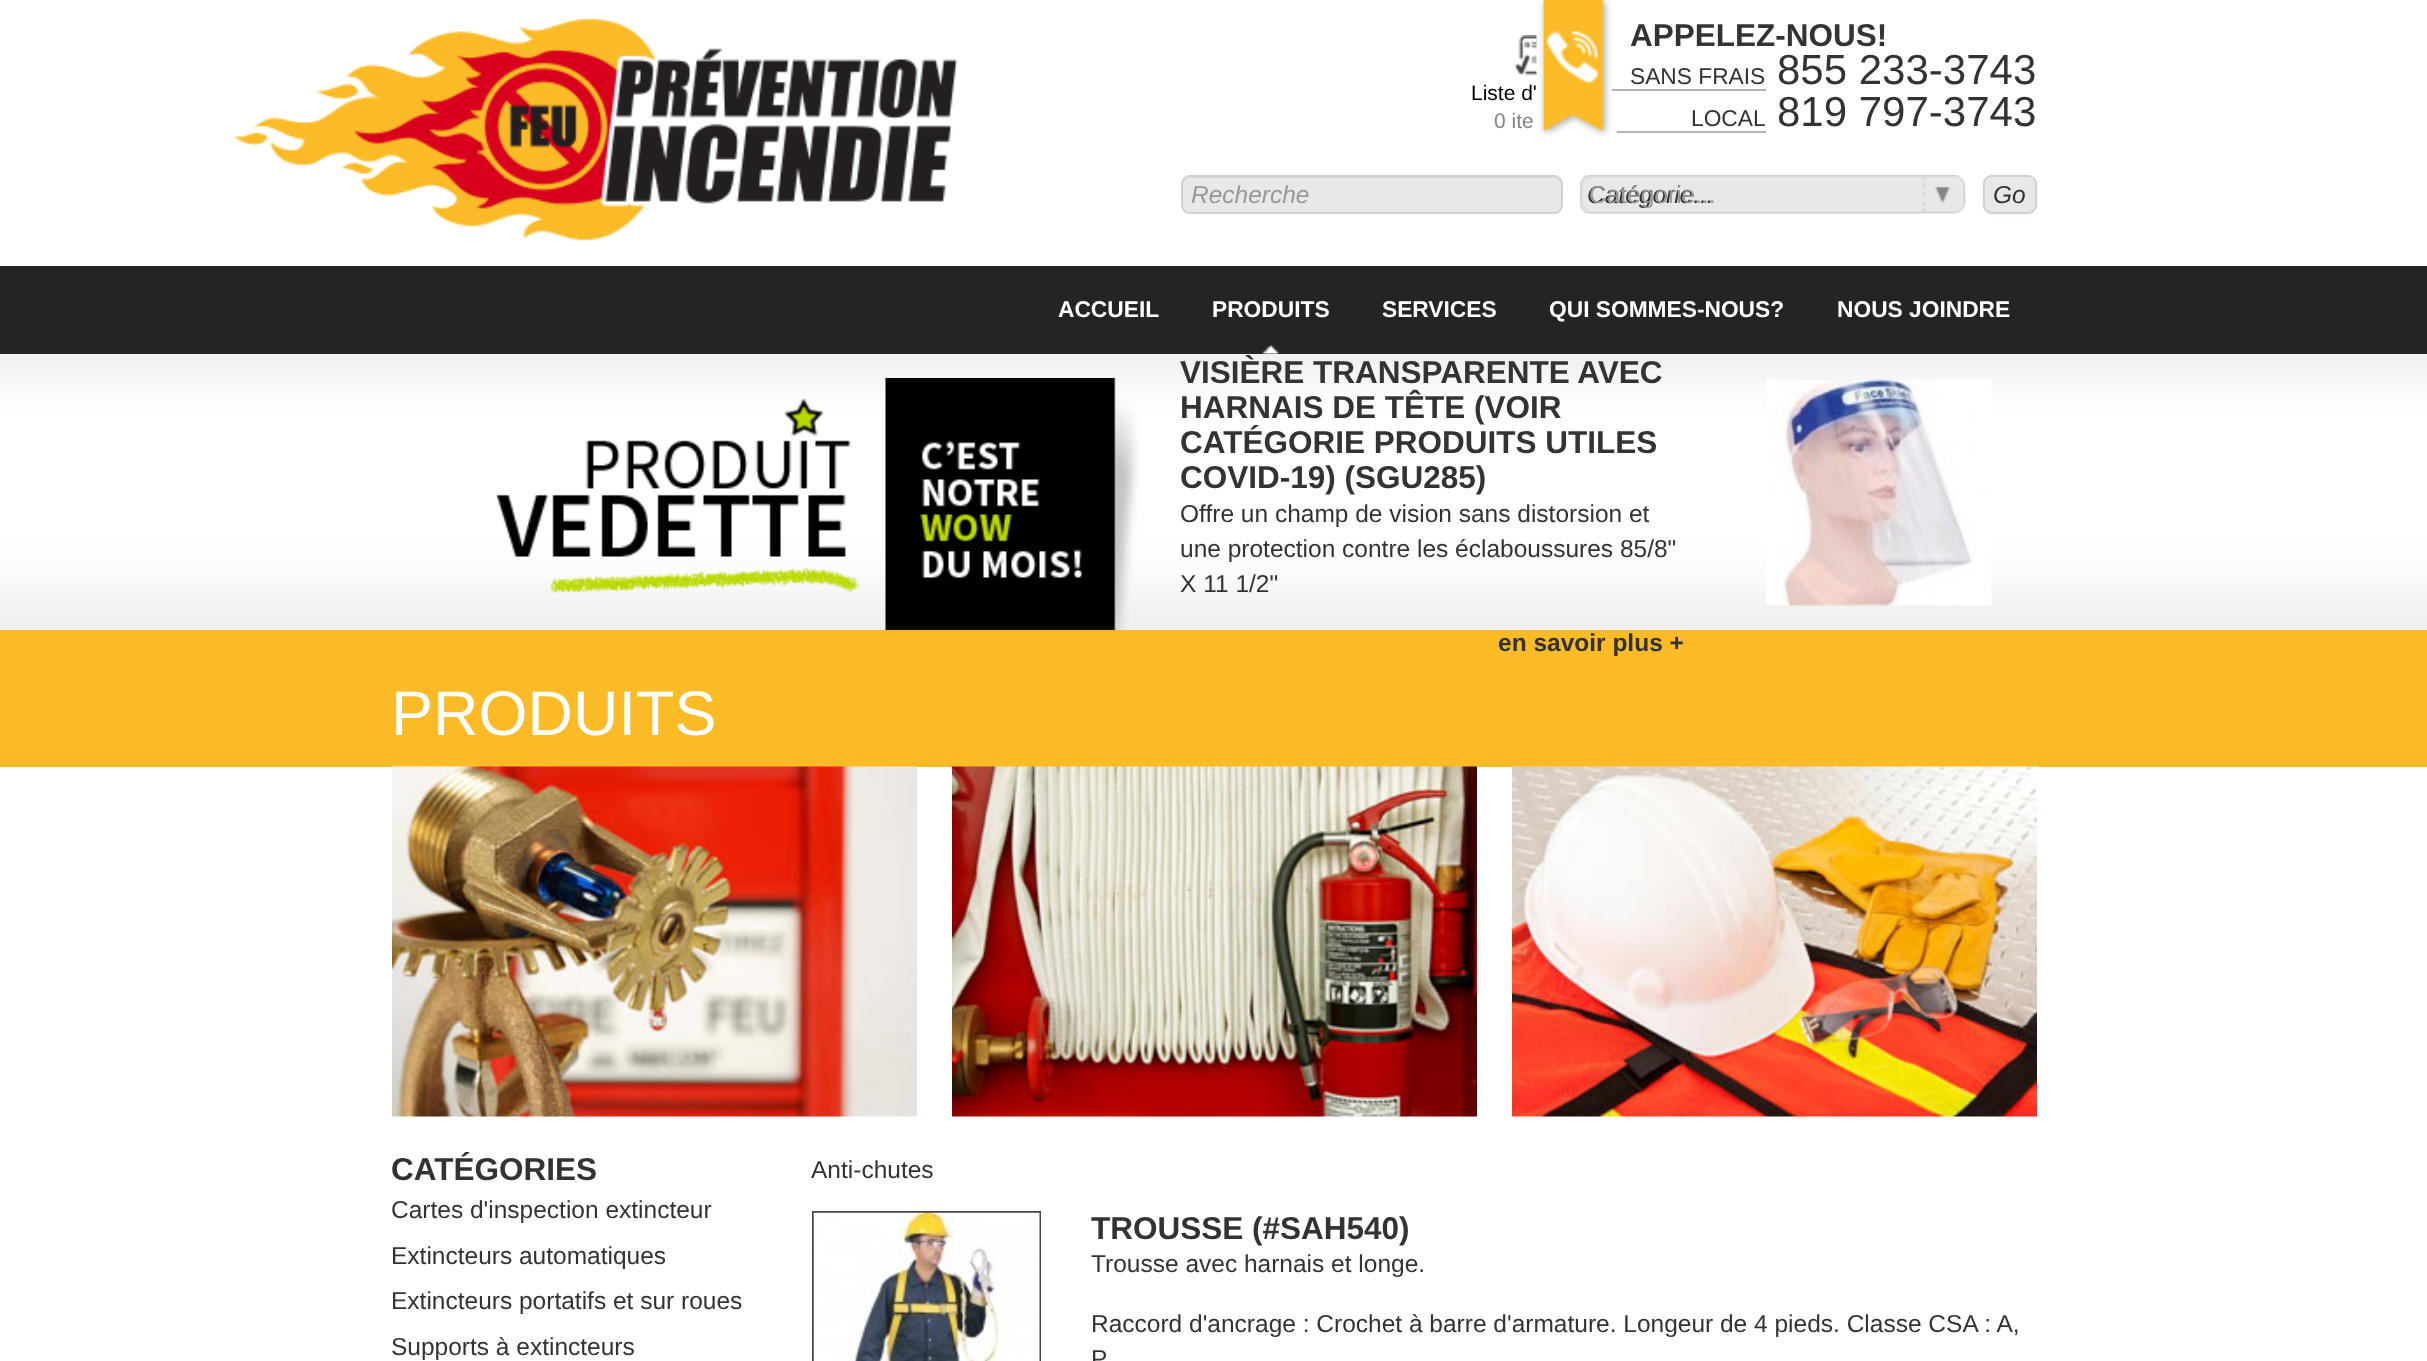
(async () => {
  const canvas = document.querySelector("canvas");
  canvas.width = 2427;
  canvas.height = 1361;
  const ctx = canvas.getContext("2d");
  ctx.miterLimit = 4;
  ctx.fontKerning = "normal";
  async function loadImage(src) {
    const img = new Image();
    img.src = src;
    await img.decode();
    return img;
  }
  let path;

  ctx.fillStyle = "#ffffff";
  ctx.fillRect(0, 0, 2427, 1361);
  ctx.drawImage(await loadImage("img/1.png"), 234, 18, 724, 223);
  ctx.drawImage(await loadImage("img/2.png"), 1515, 35, 22, 41);
  ctx.fillStyle = "#b3b3b3";
  ctx.fillRect(1611, 89, 155, 2);
  ctx.drawImage(await loadImage("img/3.png"), 1536, 0, 76, 137);
  ctx.fillRect(1617, 131, 149, 2);
  ctx.fillStyle = "#e8e8e8";
  ctx.beginPath();
  ctx.roundRect(1181, 175, 382, 39, 9);
  ctx.fill();
  ctx.fillStyle = "#d7d7d7";
  path = new Path2D("M1190 178H1554C1558 178 1561 182 1561 186V184C1561 180 1558 177 1554 177H1190C1186 177 1183 180 1183 184V186C1183 182 1186 178 1190 178Z");
  ctx.fill(path);
  ctx.beginPath();
  ctx.roundRect(1182, 176, 380, 37, 8);
  ctx.strokeStyle = "#cdd3d4";
  ctx.lineWidth = 2;
  ctx.stroke();
  ctx.drawImage(await loadImage("img/4.png"), 1580, 175, 386, 39);
  ctx.drawImage(await loadImage("img/5.png"), 1580, 175, 338, 39);
  ctx.fillStyle = "rgba(0, 0, 0, 0.05)";
  ctx.filter = "blur(2px)";
  ctx.beginPath();
  ctx.roundRect(1983, 177, 54, 38, 9);
  ctx.fill();
  ctx.filter = "none";
  ctx.fillStyle = "#e8e8e8";
  ctx.beginPath();
  ctx.roundRect(1983, 175, 54, 39, 9);
  ctx.fill();
  ctx.fillStyle = "#ededed";
  path = new Path2D("M1992 178H2028C2032 178 2035 182 2035 186V184C2035 180 2032 177 2028 177H1992C1989 177 1986 179 1985 182C1987 180 1989 178 1992 178Z");
  ctx.fill(path);
  ctx.beginPath();
  ctx.roundRect(1984, 176, 52, 37, 8);
  ctx.stroke();
  ctx.fillStyle = "#242424";
  ctx.fillRect(0, 266, 2427, 88);
  ctx.drawImage(await loadImage("img/7.png"), 0, 353, 2427, 277);
  ctx.drawImage(await loadImage("img/6.png"), 1261, 344, 19, 10);
  ctx.drawImage(await loadImage("img/8.png"), 497, 378, 643, 252);
  ctx.drawImage(await loadImage("img/9.png"), 1766, 379, 226, 227);
  ctx.fillStyle = "#fabb26";
  ctx.fillRect(0, 630, 2427, 137);
  ctx.drawImage(await loadImage("img/10.png"), 392, 766, 525, 351);
  ctx.drawImage(await loadImage("img/11.png"), 952, 766, 525, 351);
  ctx.drawImage(await loadImage("img/12.png"), 1512, 766, 525, 351);
  ctx.strokeStyle = "#464646";
  ctx.strokeRect(813, 1212, 227, 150);
  ctx.drawImage(await loadImage("img/13.png"), 813, 1212, 227, 149);
  ctx.font = "21px Liberation Sans";
  ctx.fillStyle = "#000000";
  ctx.fillText("Liste d'", 1471, 100);
  ctx.fillStyle = "#848484";
  ctx.fillText("0 ite", 1494, 128);
  ctx.font = "bold 31.5px Liberation Sans";
  ctx.fillStyle = "#333333";
  ctx.fillText("APPELEZ-NOUS!", 1630, 46);
  ctx.font = "22.75px Liberation Sans";
  ctx.fillText("SANS FRAIS", 1630, 84);
  ctx.font = "42px Liberation Sans";
  ctx.fillText("855 233-3743", 1777, 84);
  ctx.font = "22.75px Liberation Sans";
  ctx.fillText("LOCAL", 1691, 126);
  ctx.font = "42px Liberation Sans";
  ctx.fillText("819 797-3743", 1777, 126);
  ctx.font = "italic 24.5px Liberation Sans";
  ctx.fillStyle = "#999999";
  ctx.fillText("Recherche", 1191, 203);
  ctx.fillStyle = "#333333";
  ctx.fillText("Catégorie...", 1587, 203);
  ctx.font = "24.5px Liberation Sans";
  ctx.fillStyle = "#999999";
  ctx.fillText("Catégorie...", 1589, 203);
  ctx.font = "italic 24.5px Liberation Sans";
  ctx.fillStyle = "#333333";
  ctx.fillText("Go", 1993, 203);
  ctx.font = "bold 22.75px Liberation Sans";
  ctx.fillStyle = "#ffffff";
  for (const [text, x, y] of [
    ["ACCUEIL", 1058, 317],
    ["PRODUITS", 1212, 317],
    ["SERVICES", 1382, 317],
    ["QUI SOMMES-NOUS?", 1549, 317],
    ["NOUS JOINDRE", 1837, 317],
  ]) {
    ctx.fillText(text, x, y);
  }
  ctx.font = "bold 31.5px Liberation Sans";
  ctx.fillStyle = "#333333";
  for (const [text, x, y] of [
    ["VISIÈRE TRANSPARENTE AVEC", 1180, 383],
    ["HARNAIS DE TÊTE (VOIR", 1180, 418],
    ["CATÉGORIE PRODUITS UTILES", 1180, 453],
    ["COVID-19) (SGU285)", 1180, 488],
  ]) {
    ctx.fillText(text, x, y);
  }
  ctx.font = "24.5px Liberation Sans";
  for (const [text, x, y] of [
    ["Offre un champ de vision sans distorsion et", 1180, 522],
    ["une protection contre les éclaboussures 85/8\"", 1180, 557],
    ["X 11 1/2\"", 1180, 592],
  ]) {
    ctx.fillText(text, x, y);
  }
  ctx.font = "bold 24.5px Liberation Sans";
  ctx.fillText("en savoir plus +", 1498, 651);
  ctx.font = "63px Liberation Sans";
  ctx.fillStyle = "#ffffff";
  ctx.fillText("PRODUITS", 391, 735);
  ctx.font = "bold 31.5px Liberation Sans";
  ctx.fillStyle = "#333333";
  ctx.fillText("CATÉGORIES", 391, 1180);
  ctx.font = "24.5px Liberation Sans";
  for (const [text, x, y] of [
    ["Cartes d'inspection extincteur", 391, 1218],
    ["Extincteurs automatiques", 391, 1264],
    ["Extincteurs portatifs et sur roues", 391, 1309],
    ["Supports à extincteurs", 391, 1355],
    ["Anti-chutes", 811, 1178],
  ]) {
    ctx.fillText(text, x, y);
  }
  ctx.font = "bold 31.5px Liberation Sans";
  ctx.fillText("TROUSSE (#SAH540)", 1091, 1239);
  ctx.font = "24.5px Liberation Sans";
  for (const [text, x, y] of [
    ["Trousse avec harnais et longe.", 1091, 1272],
    ["Raccord d'ancrage : Crochet à barre d'armature. Longeur de 4 pieds. Classe CSA : A,", 1091, 1332],
    ["P.", 1091, 1367],
  ]) {
    ctx.fillText(text, x, y);
  }
})();
